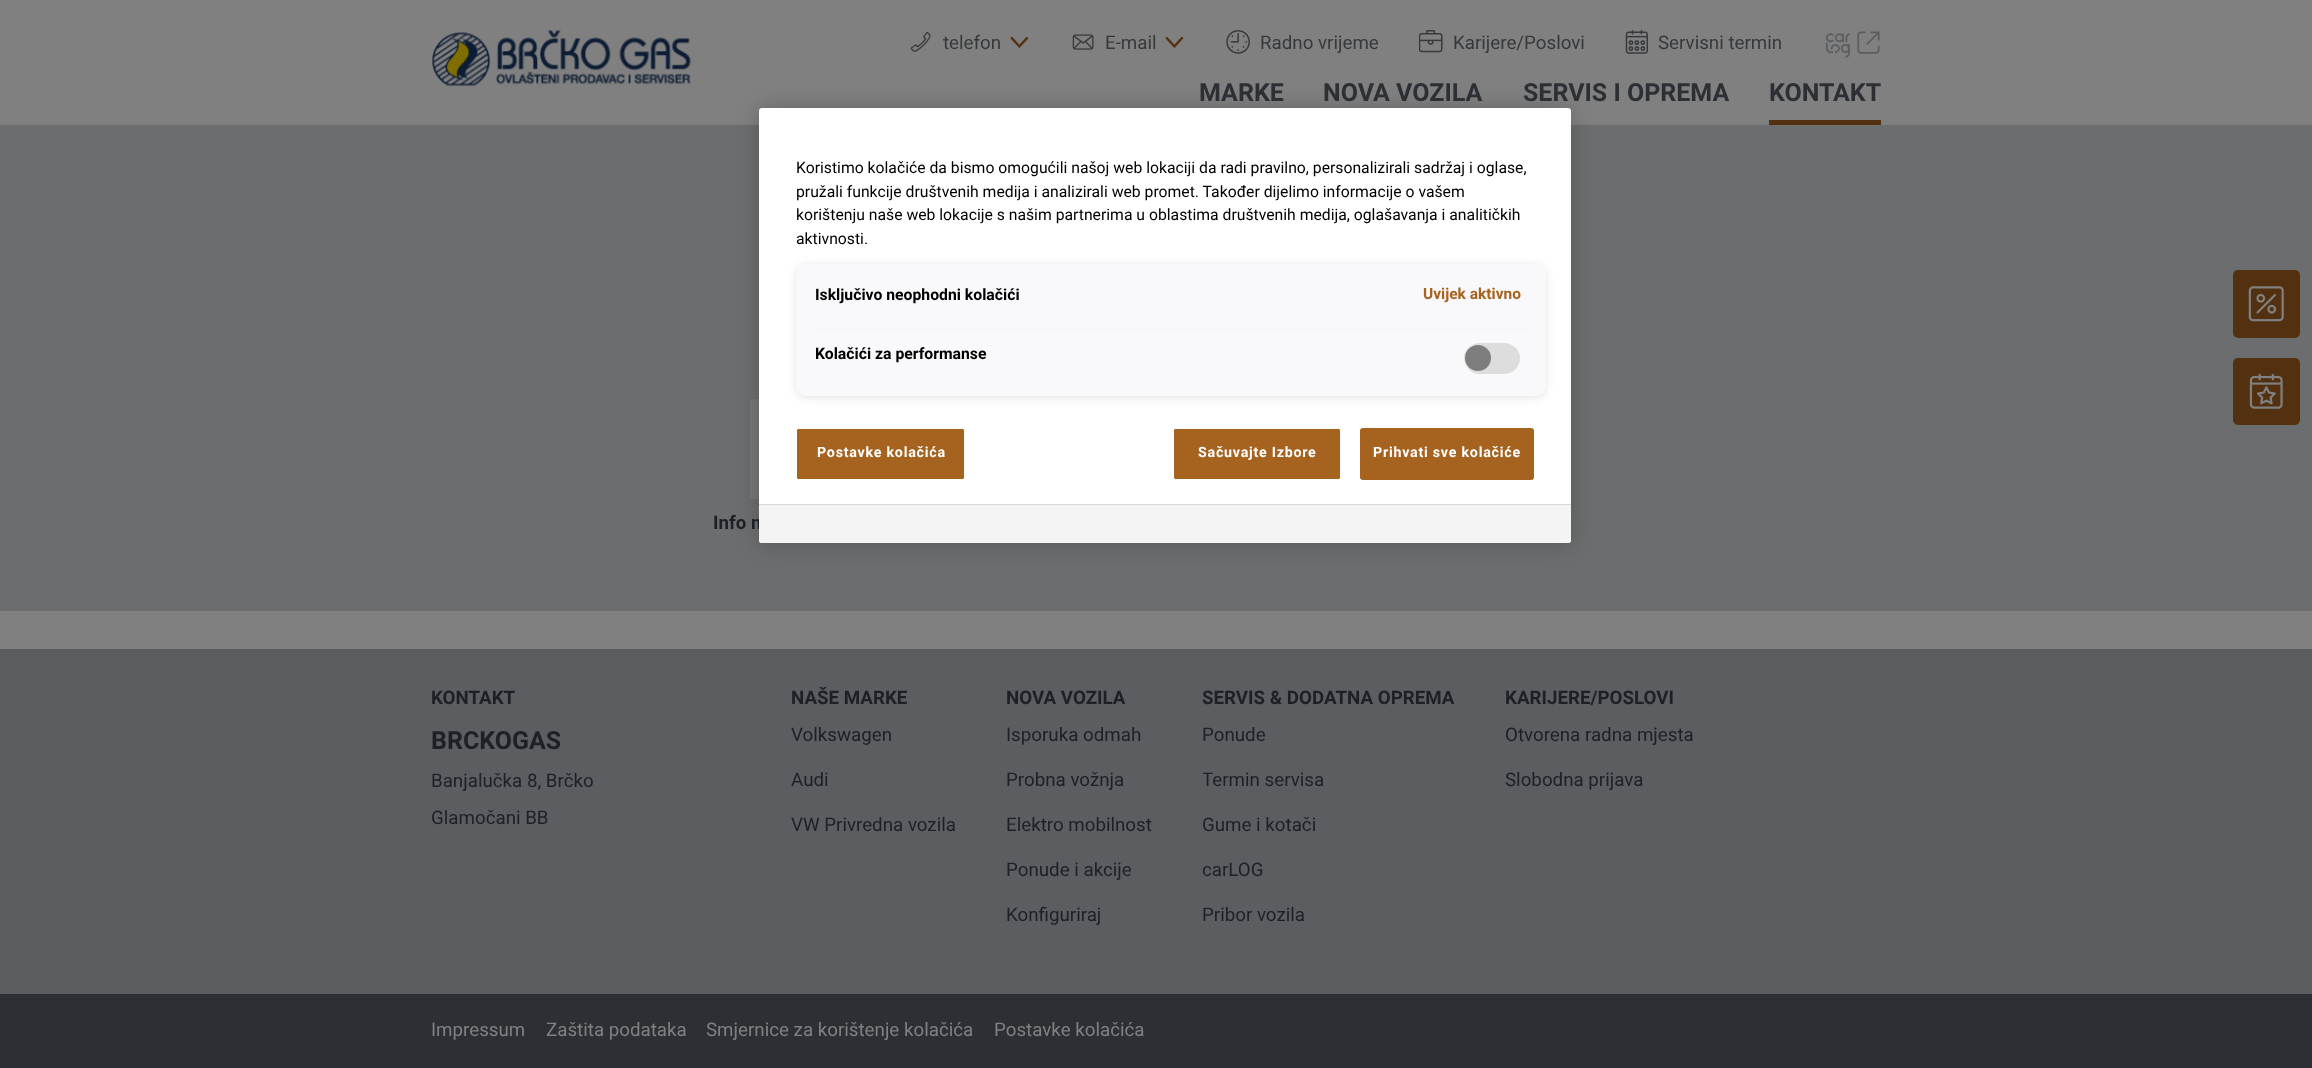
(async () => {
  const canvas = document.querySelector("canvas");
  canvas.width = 2312;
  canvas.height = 1068;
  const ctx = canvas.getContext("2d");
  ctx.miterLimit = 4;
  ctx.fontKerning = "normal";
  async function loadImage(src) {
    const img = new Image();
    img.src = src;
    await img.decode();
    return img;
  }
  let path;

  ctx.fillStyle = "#808080";
  ctx.fillRect(0, 0, 2312, 1068);
  ctx.fillStyle = "#7c7d7d";
  ctx.fillRect(0, 124, 2312, 1);
  ctx.drawImage(await loadImage("img/1.png"), 432, 30, 259, 57);
  ctx.drawImage(await loadImage("img/2.png"), 910, 31, 21, 21);
  ctx.drawImage(await loadImage("img/3.png"), 1010, 36, 19, 12);
  ctx.drawImage(await loadImage("img/4.png"), 1072, 34, 22, 16);
  ctx.drawImage(await loadImage("img/3.png"), 1165, 36, 19, 12);
  ctx.drawImage(await loadImage("img/5.png"), 1226, 30, 24, 24);
  ctx.drawImage(await loadImage("img/6.png"), 1419, 30, 24, 23);
  ctx.drawImage(await loadImage("img/7.png"), 1625, 30, 23, 24);
  ctx.drawImage(await loadImage("img/8.png"), 1825, 33, 25, 25);
  ctx.drawImage(await loadImage("img/9.png"), 1857, 31, 23, 23);
  ctx.fillStyle = "#533110";
  ctx.fillRect(1769, 120, 112, 5);
  ctx.fillStyle = "#6b6d6e";
  ctx.fillRect(0, 125, 2312, 486);
  ctx.fillStyle = "#533110";
  ctx.beginPath();
  ctx.roundRect(2233, 270, 67, 68, 5);
  ctx.fill();
  ctx.drawImage(await loadImage("img/10.png"), 2248, 286, 36, 36);
  ctx.beginPath();
  ctx.roundRect(2233, 358, 67, 67, 5);
  ctx.fill();
  ctx.drawImage(await loadImage("img/11.png"), 2249, 373, 34, 36);
  ctx.fillStyle = "#757677";
  ctx.beginPath();
  ctx.roundRect(750, 399, 100, 100, 2.5);
  ctx.fill();
  ctx.fillStyle = "rgba(0, 0, 0, 0.2)";
  ctx.filter = "blur(11px)";
  ctx.beginPath();
  ctx.roundRect(759, 108, 812, 435, 3);
  ctx.fill();
  ctx.filter = "none";
  ctx.fillStyle = "#5b5d60";
  ctx.fillRect(0, 649, 2312, 345);
  ctx.fillStyle = "#2c3035";
  ctx.fillRect(0, 994, 2312, 74);
  ctx.font = "18.75px Roboto";
  ctx.fillStyle = "#36393c";
  for (const [text, x, y] of [
    ["telefon", 943, 49],
    ["E-mail", 1105, 49],
    ["Radno vrijeme", 1260, 49],
    ["Karijere/Poslovi", 1453, 49],
    ["Servisni termin", 1658, 49],
  ]) {
    ctx.fillText(text, x, y);
  }
  ctx.font = "bold 25px Roboto";
  ctx.fillStyle = "#2c3035";
  for (const [text, x, y] of [
    ["MARKE", 1199, 101],
    ["NOVA VOZILA", 1323, 101],
    ["SERVIS I OPREMA", 1523, 101],
    ["KONTAKT", 1769, 101],
  ]) {
    ctx.fillText(text, x, y);
  }
  ctx.font = "bold 18.75px Roboto";
  ctx.fillStyle = "#1d2127";
  ctx.fillText("Info m", 713, 529);
  ctx.fillStyle = "#ffffff";
  ctx.beginPath();
  ctx.roundRect(759, 108, 812, 435, 3);
  ctx.fill();
  ctx.font = "15.75px Roboto";
  ctx.fillStyle = "#000000";
  for (const [text, x, y] of [
    ["Koristimo kolačiće da bismo omogućili našoj web lokaciji da radi pravilno, personalizirali sadržaj i oglase,", 796, 173],
    ["pružali funkcije društvenih medija i analizirali web promet. Također dijelimo informacije o vašem", 796, 197],
    ["korištenju naše web lokacije s našim partnerima u oblastima društvenih medija, oglašavanja i analitičkih", 796, 220],
    ["aktivnosti.", 796, 244],
  ]) {
    ctx.fillText(text, x, y);
  }
  ctx.fillStyle = "rgba(0, 0, 0, 0.1)";
  ctx.filter = "blur(4px)";
  ctx.beginPath();
  ctx.roundRect(796, 265, 750, 133, 10);
  ctx.fill();
  ctx.filter = "none";
  ctx.fillStyle = "#f9f9fc";
  ctx.beginPath();
  ctx.roundRect(796, 264, 750, 132, 10);
  ctx.fill();
  ctx.fillStyle = "#f4f4f4";
  ctx.fillRect(815, 329, 713, 1);
  ctx.font = "bold 15.75px Roboto";
  ctx.fillStyle = "#000000";
  ctx.fillText("Isključivo neophodni kolačići", 815, 300);
  ctx.font = "bold 15.5px Roboto";
  ctx.fillStyle = "#a6621f";
  ctx.fillText("Uvijek aktivno", 1423, 299);
  ctx.font = "bold 15.75px Roboto";
  ctx.fillStyle = "#000000";
  ctx.fillText("Kolačići za performanse", 815, 359);
  ctx.fillStyle = "#dddddd";
  path = new Path2D("M1480 343H1504C1513 343 1520 350 1520 358C1520 367 1513 374 1504 374H1480C1471 374 1464 367 1464 358C1464 350 1471 343 1480 343Z");
  ctx.fill(path);
  ctx.fillStyle = "#7d7d7d";
  ctx.beginPath();
  ctx.arc(1478, 358, 13, 0, Math.PI * 2);
  ctx.fill();
  ctx.fillStyle = "#a6621f";
  ctx.beginPath();
  ctx.roundRect(796.5, 428.5, 168, 51, 2);
  ctx.fill();
  ctx.strokeStyle = "#ffffff";
  ctx.stroke();
  ctx.letterSpacing = "0.75px";
  ctx.font = "bold 14.25px Roboto";
  ctx.fillStyle = "#ffffff";
  ctx.fillText("Postavke kolačića", 817, 457);
  ctx.fillStyle = "#a6621f";
  ctx.beginPath();
  ctx.roundRect(1173.5, 428.5, 167, 51, 2);
  ctx.fill();
  ctx.stroke();
  ctx.fillStyle = "#ffffff";
  ctx.fillText("Sačuvajte Izbore", 1198, 457);
  ctx.fillStyle = "#a6621f";
  ctx.beginPath();
  ctx.roundRect(1360.5, 428.5, 173, 51, 2);
  ctx.fill();
  ctx.strokeStyle = "#a6621f";
  ctx.stroke();
  ctx.fillStyle = "#ffffff";
  ctx.fillText("Prihvati sve kolačiće", 1373, 457);
  ctx.fillStyle = "#f4f4f4";
  ctx.beginPath();
  ctx.roundRect(759, 504, 812, 39, [0, 0, 3, 3]);
  ctx.fill();
  ctx.fillStyle = "#d8d8d8";
  ctx.fillRect(759, 504, 812, 1);
  ctx.letterSpacing = "0px";
  ctx.font = "bold 18.75px Roboto";
  ctx.fillStyle = "#1d2127";
  ctx.fillText("KONTAKT", 431, 704);
  ctx.font = "bold 25px Roboto";
  ctx.fillText("BRCKOGAS", 431, 749);
  ctx.font = "18.75px Roboto";
  ctx.fillText("Banjalučka 8, Brčko", 431, 787);
  ctx.fillText("Glamočani BB", 431, 824);
  ctx.font = "bold 18.75px Roboto";
  ctx.fillText("NAŠE MARKE", 791, 704);
  ctx.font = "18.75px Roboto";
  for (const [text, x, y] of [
    ["Volkswagen", 791, 741],
    ["Audi", 791, 786],
    ["VW Privredna vozila", 791, 831],
  ]) {
    ctx.fillText(text, x, y);
  }
  ctx.font = "bold 18.75px Roboto";
  ctx.fillText("NOVA VOZILA", 1006, 704);
  ctx.font = "18.75px Roboto";
  for (const [text, x, y] of [
    ["Isporuka odmah", 1006, 741],
    ["Probna vožnja", 1006, 786],
    ["Elektro mobilnost", 1006, 831],
    ["Ponude i akcije", 1006, 876],
    ["Konfiguriraj", 1006, 921],
  ]) {
    ctx.fillText(text, x, y);
  }
  ctx.font = "bold 18.75px Roboto";
  ctx.fillText("SERVIS & DODATNA OPREMA", 1202, 704);
  ctx.font = "18.75px Roboto";
  ctx.fillText("Ponude", 1202, 741);
  ctx.save();
  ctx.beginPath();
  ctx.rect(1203, 724, 252, 225);
  ctx.clip();
  ctx.fillText("Termin servisa", 1202, 786);
  ctx.restore();
  for (const [text, x, y] of [
    ["Gume i kotači", 1202, 831],
    ["carLOG", 1202, 876],
    ["Pribor vozila", 1202, 921],
  ]) {
    ctx.fillText(text, x, y);
  }
  ctx.font = "bold 18.75px Roboto";
  ctx.fillText("KARIJERE/POSLOVI", 1505, 704);
  ctx.font = "18.75px Roboto";
  ctx.fillText("Otvorena radna mjesta", 1505, 741);
  ctx.fillText("Slobodna prijava", 1505, 786);
  ctx.fillStyle = "#808080";
  for (const [text, x, y] of [
    ["Impressum", 431, 1036],
    ["Zaštita podataka", 546, 1036],
    ["Smjernice za korištenje kolačića", 706, 1036],
    ["Postavke kolačića", 994, 1036],
  ]) {
    ctx.fillText(text, x, y);
  }
})();
